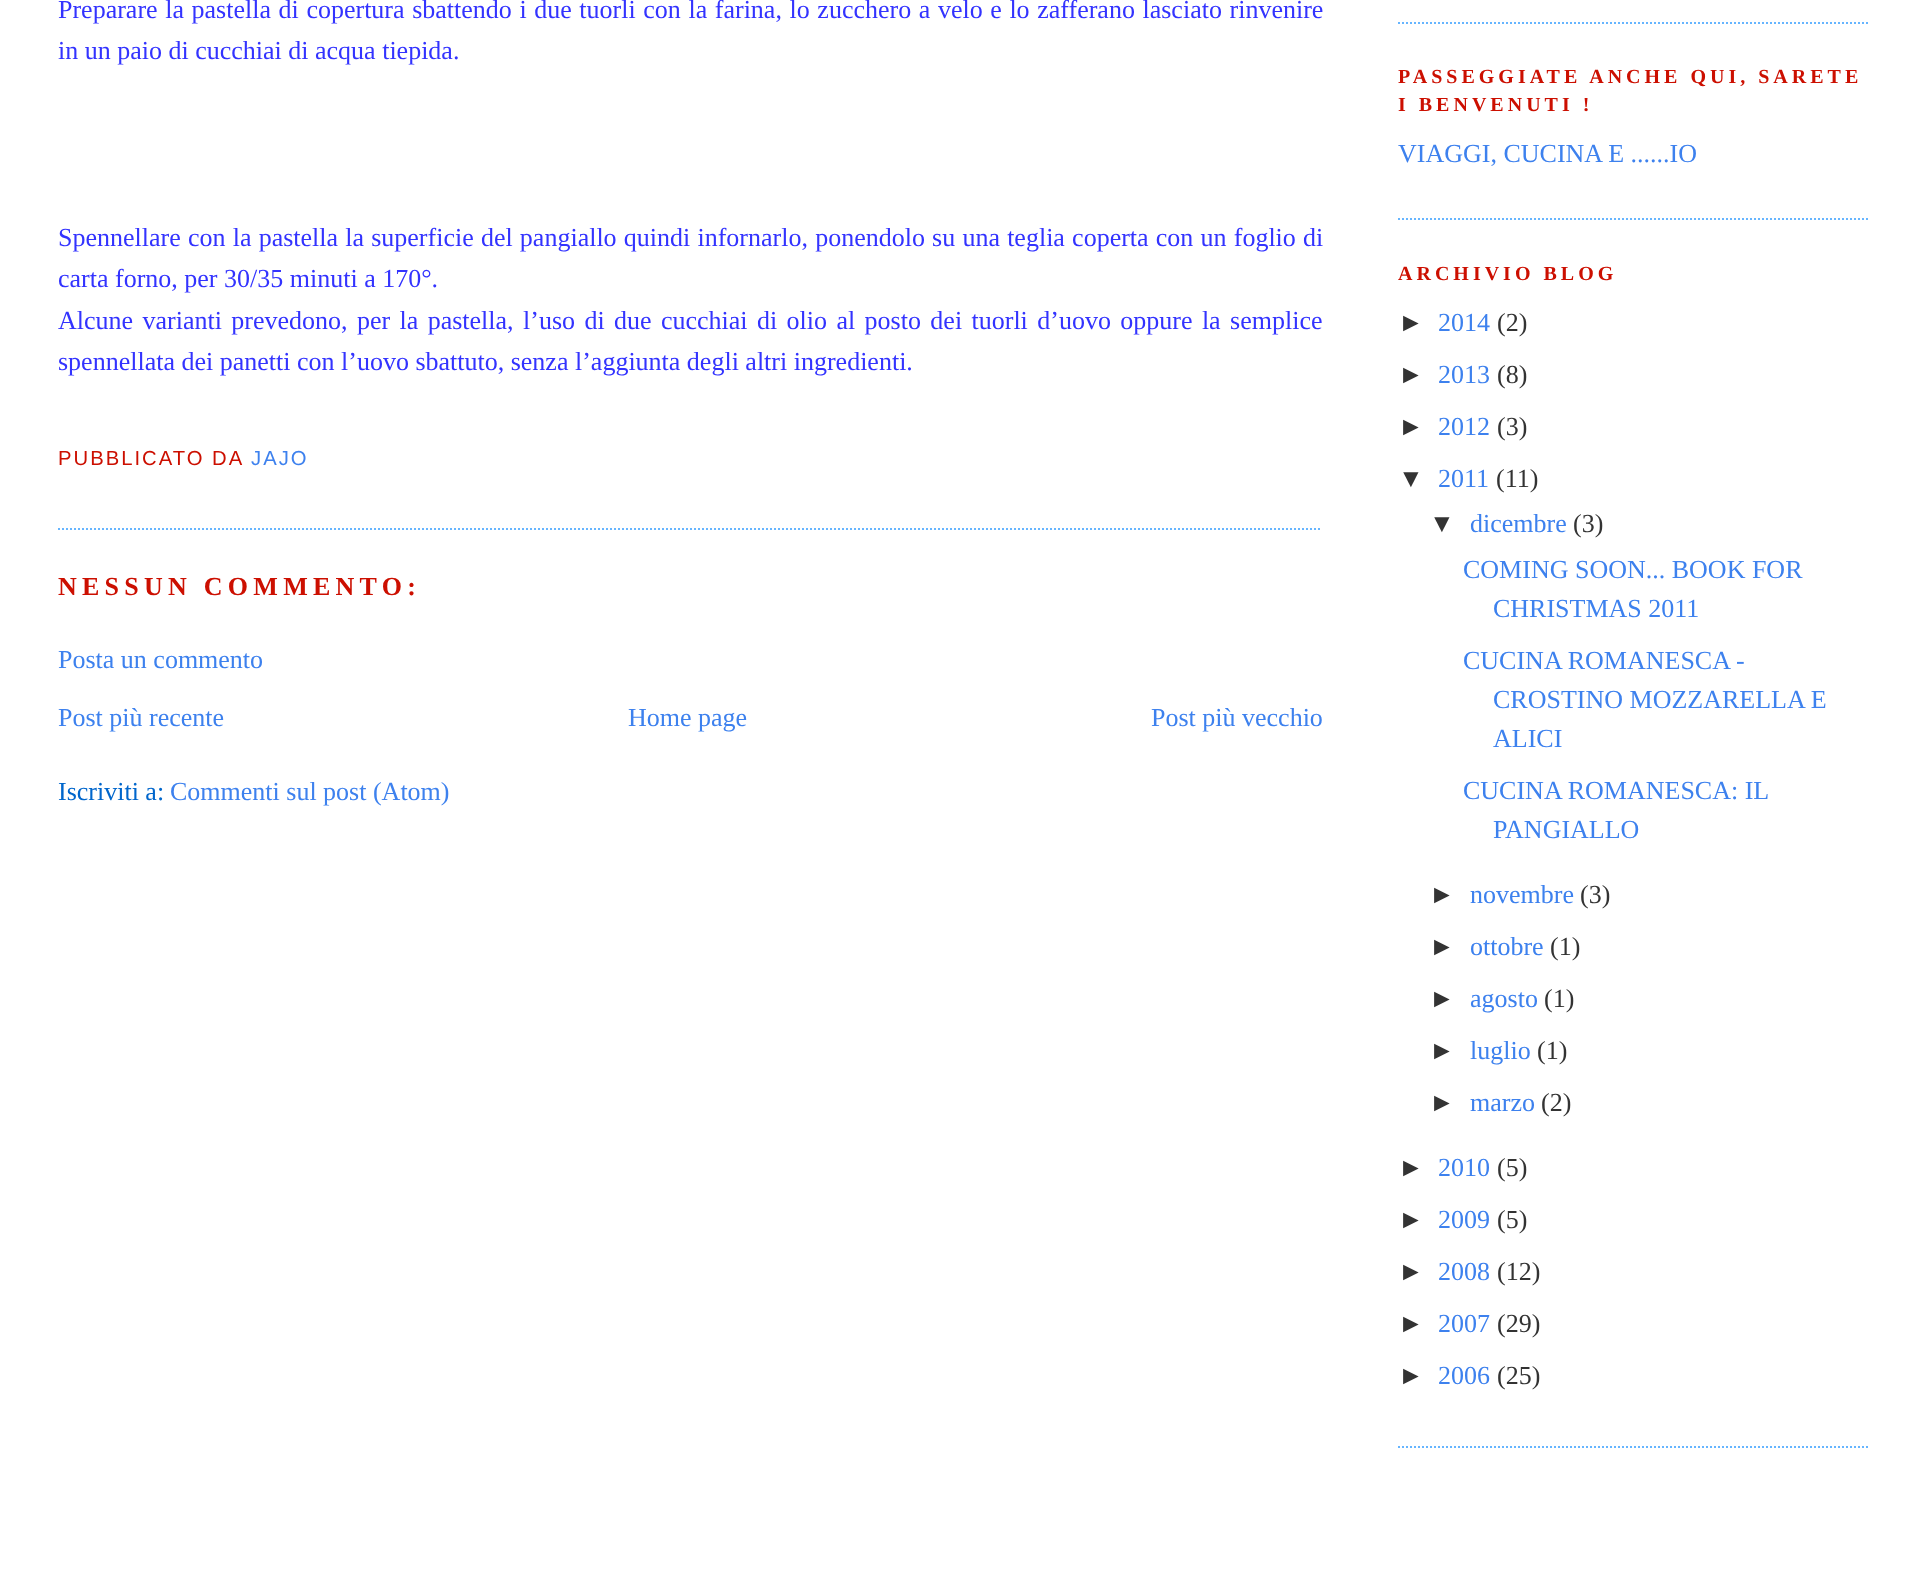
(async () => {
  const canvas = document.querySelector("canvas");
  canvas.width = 1927;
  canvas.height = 1570;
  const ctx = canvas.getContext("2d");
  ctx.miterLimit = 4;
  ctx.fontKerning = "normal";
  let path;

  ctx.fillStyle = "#ffffff";
  ctx.fillRect(0, 0, 1927, 1570);
  path = new Path2D("M58 529H1322");
  ctx.strokeStyle = "#66b5ff";
  ctx.lineWidth = 2;
  ctx.setLineDash([2, 2]);
  ctx.stroke(path);
  path = new Path2D("M1398 23H1870");
  ctx.stroke(path);
  path = new Path2D("M1398 219H1870");
  ctx.stroke(path);
  path = new Path2D("M1398 1447H1870");
  ctx.stroke(path);
  ctx.wordSpacing = "1.1px";
  ctx.font = "26px Liberation Serif";
  ctx.fillStyle = "#3333ff";
  ctx.fillText("Preparare la pastella di copertura sbattendo i due tuorli con la farina, lo zucchero a velo e lo zafferano lasciato rinvenire", 58, 18);
  ctx.wordSpacing = "0px";
  ctx.fillText("in un paio di cucchiai di acqua tiepida.", 58, 59);
  ctx.wordSpacing = "0.7px";
  ctx.fillText("Spennellare con la pastella la superficie del pangiallo quindi infornarlo, ponendolo su una teglia coperta con un foglio di", 58, 246);
  ctx.wordSpacing = "0px";
  ctx.fillText("carta forno, per 30/35 minuti a 170°.", 58, 287);
  ctx.wordSpacing = "2.9px";
  ctx.fillText("Alcune varianti prevedono, per la pastella, l’uso di due cucchiai di olio al posto dei tuorli d’uovo oppure la semplice", 58, 329);
  ctx.wordSpacing = "0px";
  ctx.fillText("spennellata dei panetti con l’uovo sbattuto, senza l’aggiunta degli altri ingredienti.", 58, 370);
  ctx.letterSpacing = "2px";
  ctx.font = "20.25px Liberation Sans";
  ctx.fillStyle = "#cc0f00";
  ctx.fillText("PUBBLICATO DA", 58, 465);
  ctx.fillStyle = "#3d81ee";
  ctx.fillText("JAJO", 251, 465);
  ctx.letterSpacing = "5.25px";
  ctx.font = "bold 26px Liberation Serif";
  ctx.fillStyle = "#cc0f00";
  ctx.fillText("NESSUN COMMENTO:", 58, 595);
  ctx.letterSpacing = "0px";
  ctx.font = "26px Liberation Serif";
  ctx.fillStyle = "#3d81ee";
  for (const [text, x, y] of [
    ["Posta un commento", 58, 668],
    ["Post più recente", 58, 726],
    ["Home page", 628, 726],
    ["Post più vecchio", 1151, 726],
  ]) {
    ctx.fillText(text, x, y);
  }
  ctx.fillStyle = "#0066cc";
  ctx.fillText("Iscriviti a:", 58, 800);
  ctx.fillStyle = "#3d81ee";
  ctx.fillText("Commenti sul post (Atom)", 170, 800);
  ctx.letterSpacing = "4px";
  ctx.font = "bold 20px Liberation Serif";
  ctx.fillStyle = "#cc0f00";
  ctx.fillText("PASSEGGIATE ANCHE QUI, SARETE", 1398, 83);
  ctx.fillText("I BENVENUTI !", 1398, 111);
  ctx.letterSpacing = "0px";
  ctx.font = "26px Liberation Serif";
  ctx.fillStyle = "#3d81ee";
  ctx.fillText("VIAGGI, CUCINA E ......IO", 1398, 162);
  ctx.letterSpacing = "4px";
  ctx.font = "bold 20px Liberation Serif";
  ctx.fillStyle = "#cc0f00";
  ctx.fillText("ARCHIVIO BLOG", 1398, 280);
  ctx.letterSpacing = "0px";
  ctx.font = "26px Liberation Sans";
  ctx.fillStyle = "#333333";
  ctx.fillText("►", 1398, 331);
  ctx.font = "26px Liberation Serif";
  ctx.fillStyle = "#3d81ee";
  ctx.fillText("2014", 1438, 331);
  ctx.fillStyle = "#333333";
  ctx.fillText("(2)", 1497, 331);
  ctx.font = "26px Liberation Sans";
  ctx.fillText("►", 1398, 383);
  ctx.font = "26px Liberation Serif";
  ctx.fillStyle = "#3d81ee";
  ctx.fillText("2013", 1438, 383);
  ctx.fillStyle = "#333333";
  ctx.fillText("(8)", 1497, 383);
  ctx.font = "26px Liberation Sans";
  ctx.fillText("►", 1398, 435);
  ctx.font = "26px Liberation Serif";
  ctx.fillStyle = "#3d81ee";
  ctx.fillText("2012", 1438, 435);
  ctx.fillStyle = "#333333";
  ctx.fillText("(3)", 1497, 435);
  ctx.font = "26px Liberation Sans";
  ctx.fillText("▼", 1398, 487);
  ctx.font = "26px Liberation Serif";
  ctx.fillStyle = "#3d81ee";
  ctx.fillText("2011", 1438, 487);
  ctx.fillStyle = "#333333";
  ctx.fillText("(11)", 1496, 487);
  ctx.font = "26px Liberation Sans";
  ctx.fillText("▼", 1429, 532);
  ctx.font = "26px Liberation Serif";
  ctx.fillStyle = "#3d81ee";
  ctx.fillText("dicembre", 1470, 532);
  ctx.fillStyle = "#333333";
  ctx.fillText("(3)", 1573, 532);
  ctx.fillStyle = "#3d81ee";
  for (const [text, x, y] of [
    ["COMING SOON... BOOK FOR", 1463, 578],
    ["CHRISTMAS 2011", 1493, 617],
    ["CUCINA ROMANESCA -", 1463, 669],
    ["CROSTINO MOZZARELLA E", 1493, 708],
    ["ALICI", 1493, 747],
    ["CUCINA ROMANESCA: IL", 1463, 799],
    ["PANGIALLO", 1493, 838],
  ]) {
    ctx.fillText(text, x, y);
  }
  ctx.font = "26px Liberation Sans";
  ctx.fillStyle = "#333333";
  ctx.fillText("►", 1429, 903);
  ctx.font = "26px Liberation Serif";
  ctx.fillStyle = "#3d81ee";
  ctx.fillText("novembre", 1470, 903);
  ctx.fillStyle = "#333333";
  ctx.fillText("(3)", 1580, 903);
  ctx.font = "26px Liberation Sans";
  ctx.fillText("►", 1429, 955);
  ctx.font = "26px Liberation Serif";
  ctx.fillStyle = "#3d81ee";
  ctx.fillText("ottobre", 1470, 955);
  ctx.fillStyle = "#333333";
  ctx.fillText("(1)", 1550, 955);
  ctx.font = "26px Liberation Sans";
  ctx.fillText("►", 1429, 1007);
  ctx.font = "26px Liberation Serif";
  ctx.fillStyle = "#3d81ee";
  ctx.fillText("agosto", 1470, 1007);
  ctx.fillStyle = "#333333";
  ctx.fillText("(1)", 1544, 1007);
  ctx.font = "26px Liberation Sans";
  ctx.fillText("►", 1429, 1059);
  ctx.font = "26px Liberation Serif";
  ctx.fillStyle = "#3d81ee";
  ctx.fillText("luglio", 1470, 1059);
  ctx.fillStyle = "#333333";
  ctx.fillText("(1)", 1537, 1059);
  ctx.font = "26px Liberation Sans";
  ctx.fillText("►", 1429, 1111);
  ctx.font = "26px Liberation Serif";
  ctx.fillStyle = "#3d81ee";
  ctx.fillText("marzo", 1470, 1111);
  ctx.fillStyle = "#333333";
  ctx.fillText("(2)", 1541, 1111);
  ctx.font = "26px Liberation Sans";
  ctx.fillText("►", 1398, 1176);
  ctx.font = "26px Liberation Serif";
  ctx.fillStyle = "#3d81ee";
  ctx.fillText("2010", 1438, 1176);
  ctx.fillStyle = "#333333";
  ctx.fillText("(5)", 1497, 1176);
  ctx.font = "26px Liberation Sans";
  ctx.fillText("►", 1398, 1228);
  ctx.font = "26px Liberation Serif";
  ctx.fillStyle = "#3d81ee";
  ctx.fillText("2009", 1438, 1228);
  ctx.fillStyle = "#333333";
  ctx.fillText("(5)", 1497, 1228);
  ctx.font = "26px Liberation Sans";
  ctx.fillText("►", 1398, 1280);
  ctx.font = "26px Liberation Serif";
  ctx.fillStyle = "#3d81ee";
  ctx.fillText("2008", 1438, 1280);
  ctx.fillStyle = "#333333";
  ctx.fillText("(12)", 1497, 1280);
  ctx.font = "26px Liberation Sans";
  ctx.fillText("►", 1398, 1332);
  ctx.font = "26px Liberation Serif";
  ctx.fillStyle = "#3d81ee";
  ctx.fillText("2007", 1438, 1332);
  ctx.fillStyle = "#333333";
  ctx.fillText("(29)", 1497, 1332);
  ctx.font = "26px Liberation Sans";
  ctx.fillText("►", 1398, 1384);
  ctx.font = "26px Liberation Serif";
  ctx.fillStyle = "#3d81ee";
  ctx.fillText("2006", 1438, 1384);
  ctx.fillStyle = "#333333";
  ctx.fillText("(25)", 1497, 1384);
})();
